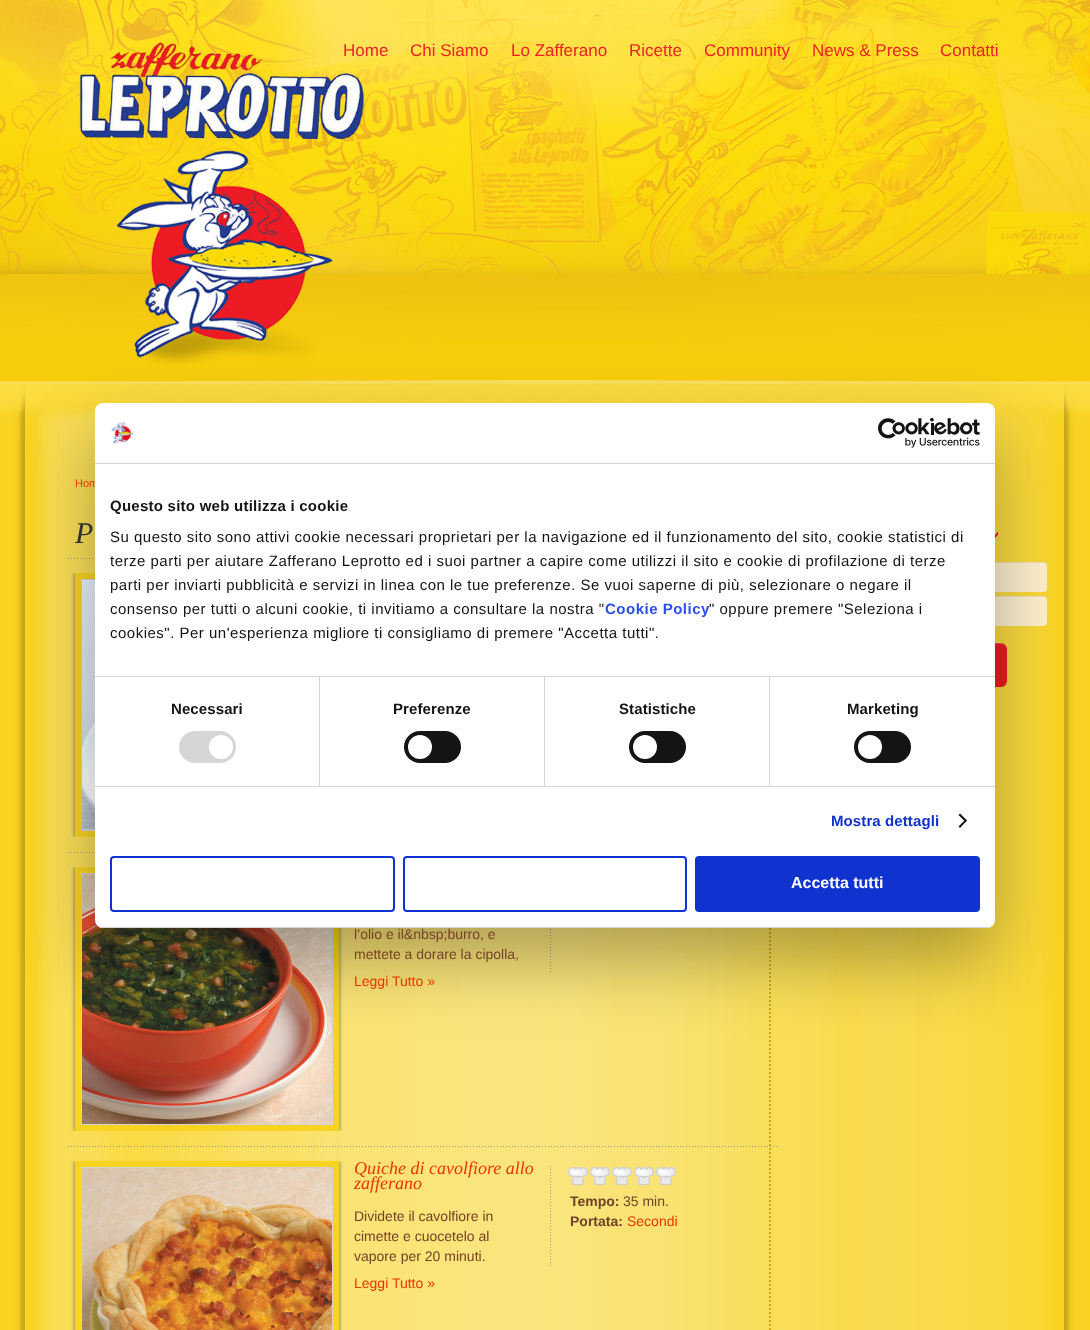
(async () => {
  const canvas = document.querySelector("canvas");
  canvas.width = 1090;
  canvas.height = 1330;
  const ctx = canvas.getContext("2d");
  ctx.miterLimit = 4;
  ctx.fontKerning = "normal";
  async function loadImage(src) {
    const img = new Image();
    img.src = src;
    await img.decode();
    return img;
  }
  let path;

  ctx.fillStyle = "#ffffff";
  ctx.fillRect(0, 0, 1090, 1330);
  ctx.drawImage(await loadImage("img/1.png"), 0, 0, 1090, 433);
  ctx.drawImage(await loadImage("img/2.png"), 79, 42, 285, 98);
  ctx.drawImage(await loadImage("img/3.png"), 116, 150, 217, 214);
  ctx.drawImage(await loadImage("img/4.png"), 0, 433, 1090, 897);
  ctx.drawImage(await loadImage("img/5.png"), 68, 558, 25, 1);
  ctx.save();
  ctx.beginPath();
  ctx.rect(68, 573, 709, 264);
  ctx.clip();
  ctx.fillStyle = "#666666";
  ctx.filter = "blur(2px)";
  ctx.beginPath();
  ctx.rect(75, 573, 264, 264);
  ctx.fill();
  ctx.filter = "none";
  ctx.restore();
  ctx.strokeStyle = "#f8d320";
  ctx.lineWidth = 6;
  ctx.strokeRect(78, 576, 258, 258);
  ctx.strokeStyle = "#d2d3d4";
  ctx.lineWidth = 1;
  ctx.strokeRect(81.5, 579.5, 251, 251);
  ctx.drawImage(await loadImage("img/6.png"), 82, 580, 13, 250);
  ctx.drawImage(await loadImage("img/5.png"), 68, 852, 25, 1);
  ctx.save();
  ctx.beginPath();
  ctx.rect(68, 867, 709, 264);
  ctx.clip();
  ctx.fillStyle = "#666666";
  ctx.filter = "blur(2px)";
  ctx.beginPath();
  ctx.rect(75, 867, 264, 264);
  ctx.fill();
  ctx.filter = "none";
  ctx.restore();
  ctx.strokeStyle = "#f8d320";
  ctx.lineWidth = 6;
  ctx.strokeRect(78, 870, 258, 258);
  ctx.strokeStyle = "#d2d3d4";
  ctx.lineWidth = 1;
  ctx.strokeRect(81.5, 873.5, 251, 251);
  ctx.drawImage(await loadImage("img/7.png"), 82, 874, 250, 250);
  ctx.drawImage(await loadImage("img/8.png"), 550, 929, 1, 43);
  ctx.drawImage(await loadImage("img/9.png"), 68, 1146, 709, 1);
  ctx.save();
  ctx.beginPath();
  ctx.rect(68, 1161, 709, 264);
  ctx.clip();
  ctx.fillStyle = "#666666";
  ctx.filter = "blur(2px)";
  ctx.beginPath();
  ctx.rect(75, 1161, 264, 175);
  ctx.fill();
  ctx.filter = "none";
  ctx.restore();
  ctx.strokeStyle = "#f8d320";
  ctx.lineWidth = 6;
  ctx.strokeRect(78, 1164, 258, 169);
  ctx.strokeStyle = "#d2d3d4";
  ctx.lineWidth = 1;
  ctx.strokeRect(81.5, 1167.5, 251, 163);
  ctx.drawImage(await loadImage("img/10.png"), 82, 1168, 250, 162);
  ctx.drawImage(await loadImage("img/11.png"), 550, 1166, 1, 100);
  ctx.drawImage(await loadImage("img/12.png"), 568, 1167, 108, 18);
  ctx.drawImage(await loadImage("img/13.png"), 995, 524, 5, 21);
  ctx.fillStyle = "#fdefcc";
  ctx.beginPath();
  ctx.roundRect(802, 562, 245, 30, 4);
  ctx.fill();
  ctx.fillStyle = "rgba(0, 0, 0, 0.07)";
  path = new Path2D("M806 563H1043C1045 563 1047 565 1047 567V566C1047 564 1045 562 1043 562H806C804 562 802 564 802 566V567C802 565 804 563 806 563Z");
  ctx.fill(path);
  ctx.fillStyle = "#fdefcc";
  ctx.beginPath();
  ctx.roundRect(802, 596, 245, 30, 4);
  ctx.fill();
  ctx.fillStyle = "rgba(0, 0, 0, 0.07)";
  path = new Path2D("M806 597H1043C1045 597 1047 599 1047 601V600C1047 598 1045 596 1043 596H806C804 596 802 598 802 600V601C802 599 804 597 806 597Z");
  ctx.fill(path);
  ctx.fillStyle = "rgba(0, 0, 0, 0.05)";
  ctx.filter = "blur(1px)";
  ctx.beginPath();
  ctx.roundRect(897, 644, 110, 44, 6);
  ctx.fill();
  ctx.filter = "none";
  ctx.fillStyle = "#ed1b24";
  ctx.beginPath();
  ctx.roundRect(897, 643, 110, 44, 6);
  ctx.fill();
  ctx.fillStyle = "rgba(255, 255, 255, 0.2)";
  path = new Path2D("M903 644H1001C1004 644 1007 647 1007 650C1007 639 991 643 985 643H919C913 643 897 639 897 650C897 647 900 644 903 644Z");
  ctx.fill(path);
  ctx.fillStyle = "rgba(0, 0, 0, 0.3)";
  ctx.filter = "blur(34px)";
  ctx.beginPath();
  ctx.roundRect(95, 435, 900, 525, 8);
  ctx.fill();
  ctx.filter = "none";
  ctx.font = "17px Liberation Sans";
  ctx.fillStyle = "#ee1f28";
  for (const [text, x, y] of [
    ["Home", 343, 56],
    ["Chi Siamo", 410, 56],
    ["Lo Zafferano", 511, 56],
    ["Ricette", 629, 56],
    ["Community", 704, 56],
    ["News & Press", 812, 56],
    ["Contatti", 940, 56],
  ]) {
    ctx.fillText(text, x, y);
  }
  ctx.font = "11px Liberation Sans";
  ctx.fillStyle = "#eb3500";
  ctx.fillText("Hom", 75, 487);
  ctx.font = "italic 30px Liberation Serif";
  ctx.fillStyle = "#323232";
  ctx.fillText("P", 75, 543);
  ctx.font = "14px Liberation Sans";
  ctx.fillStyle = "#744229";
  ctx.fillText("l’olio e il&nbsp;burro, e", 354, 939);
  ctx.fillText("mettete a dorare la cipolla,", 354, 959);
  ctx.fillStyle = "#eb3500";
  ctx.fillText("Leggi Tutto »", 354, 986);
  ctx.font = "italic 18px Liberation Serif";
  ctx.fillText("Quiche di cavolfiore allo", 354, 1174);
  ctx.fillText("zafferano", 354, 1189);
  ctx.font = "14px Liberation Sans";
  ctx.fillStyle = "#744229";
  for (const [text, x, y] of [
    ["Dividete il cavolfiore in", 354, 1221],
    ["cimette e cuocetelo al", 354, 1241],
    ["vapore per 20 minuti.", 354, 1261],
  ]) {
    ctx.fillText(text, x, y);
  }
  ctx.font = "bold 14px Liberation Sans";
  ctx.fillText("Tempo:", 570, 1206);
  ctx.font = "14px Liberation Sans";
  ctx.fillText("35 min.", 623, 1206);
  ctx.font = "bold 14px Liberation Sans";
  ctx.fillText("Portata:", 570, 1226);
  ctx.font = "14px Liberation Sans";
  ctx.fillStyle = "#eb3500";
  ctx.fillText("Secondi", 627, 1226);
  ctx.fillText("Leggi Tutto »", 354, 1288);
  ctx.fillStyle = "#ffffff";
  ctx.beginPath();
  ctx.roundRect(95, 403, 900, 525, 8);
  ctx.fill();
  ctx.fillStyle = "#d6d6d6";
  ctx.fillRect(95, 463, 900, 1);
  ctx.drawImage(await loadImage("img/14.png"), 111, 421, 22, 23);
  ctx.drawImage(await loadImage("img/15.png"), 878, 418, 102, 30);
  ctx.fillRect(95, 676, 900, 1);
  ctx.letterSpacing = "0.25px";
  ctx.font = "bold 15px Liberation Sans";
  ctx.fillStyle = "#141414";
  ctx.fillText("Questo sito web utilizza i cookie", 110, 511);
  ctx.letterSpacing = "0.5px";
  ctx.font = "15px Liberation Sans";
  for (const [text, x, y] of [
    ["Su questo sito sono attivi cookie necessari proprietari per la navigazione ed il funzionamento del sito, cookie statistici di", 110, 542],
    ["terze parti per aiutare Zafferano Leprotto ed i suoi partner a capire come utilizzi il sito e cookie di profilazione di terze", 110, 566],
    ["parti per inviarti pubblicità e servizi in linea con le tue preferenze. Se vuoi saperne di più, selezionare o negare il", 110, 590],
    ["consenso per tutti o alcuni cookie, ti invitiamo a consultare la nostra \"", 110, 614],
  ]) {
    ctx.fillText(text, x, y);
  }
  ctx.font = "bold 15px Liberation Sans";
  ctx.fillStyle = "#2a4eef";
  ctx.fillText("Cookie Policy", 605, 614);
  ctx.font = "15px Liberation Sans";
  ctx.fillStyle = "#141414";
  ctx.fillText("\" oppure premere \"Seleziona i", 709, 614);
  ctx.fillText("cookies\". Per un'esperienza migliore ti consigliamo di premere \"Accetta tutti\".", 110, 638);
  ctx.fillStyle = "#d6d6d6";
  ctx.fillRect(95, 786, 900, 1);
  ctx.fillRect(319, 677, 1, 109);
  ctx.letterSpacing = "0.1px";
  ctx.font = "bold 15px Liberation Sans";
  ctx.fillStyle = "#141414";
  ctx.fillText("Necessari", 171, 714);
  ctx.fillStyle = "#d6d6d6";
  ctx.beginPath();
  ctx.roundRect(179, 731, 57, 32, 16);
  ctx.fill();
  ctx.fillStyle = "#ffffff";
  ctx.beginPath();
  ctx.arc(221, 747, 12, 0, Math.PI * 2);
  ctx.fill();
  ctx.fillStyle = "#d6d6d6";
  ctx.fillRect(544, 677, 1, 109);
  ctx.fillStyle = "#141414";
  ctx.fillText("Preferenze", 393, 714);
  ctx.beginPath();
  ctx.roundRect(404, 731, 57, 32, 16);
  ctx.fill();
  ctx.fillStyle = "#ffffff";
  ctx.beginPath();
  ctx.arc(420, 747, 12, 0, Math.PI * 2);
  ctx.fill();
  ctx.fillStyle = "#d6d6d6";
  ctx.fillRect(769, 677, 1, 109);
  ctx.fillStyle = "#141414";
  ctx.fillText("Statistiche", 619, 714);
  ctx.beginPath();
  ctx.roundRect(629, 731, 57, 32, 16);
  ctx.fill();
  ctx.fillStyle = "#ffffff";
  ctx.beginPath();
  ctx.arc(645, 747, 12, 0, Math.PI * 2);
  ctx.fill();
  ctx.fillStyle = "#141414";
  ctx.fillText("Marketing", 847, 714);
  ctx.beginPath();
  ctx.roundRect(854, 731, 57, 32, 16);
  ctx.fill();
  ctx.fillStyle = "#ffffff";
  ctx.beginPath();
  ctx.arc(870, 747, 12, 0, Math.PI * 2);
  ctx.fill();
  ctx.fillStyle = "#1032cf";
  ctx.fillText("Mostra dettagli", 831, 826);
  ctx.fillStyle = "#141414";
  path = new Path2D("M960 813.5L967 820.5L965.5 822L958.5 815Z");
  ctx.fill(path);
  path = new Path2D("M965.5 819.5L967 820.5L960 828L958.5 826.5Z");
  ctx.fill(path);
  ctx.save();
  ctx.beginPath();
  ctx.roundRect(95, 403, 900, 525, 8);
  ctx.clip();
  ctx.fillStyle = "#d6d6d6";
  ctx.fillRect(95, 927, 900, 1);
  ctx.restore();
  ctx.beginPath();
  ctx.roundRect(111, 857, 283, 54, 3);
  ctx.strokeStyle = "#1032cf";
  ctx.lineWidth = 2;
  ctx.stroke();
  ctx.beginPath();
  ctx.roundRect(404, 857, 282, 54, 3);
  ctx.stroke();
  ctx.fillStyle = "#1032cf";
  ctx.beginPath();
  ctx.roundRect(696, 857, 283, 54, 3);
  ctx.fill();
  ctx.stroke();
  ctx.letterSpacing = "0px";
  ctx.font = "bold 16px Liberation Sans";
  ctx.fillStyle = "#ffffff";
  ctx.fillText("Accetta tutti", 791, 888);
})();
